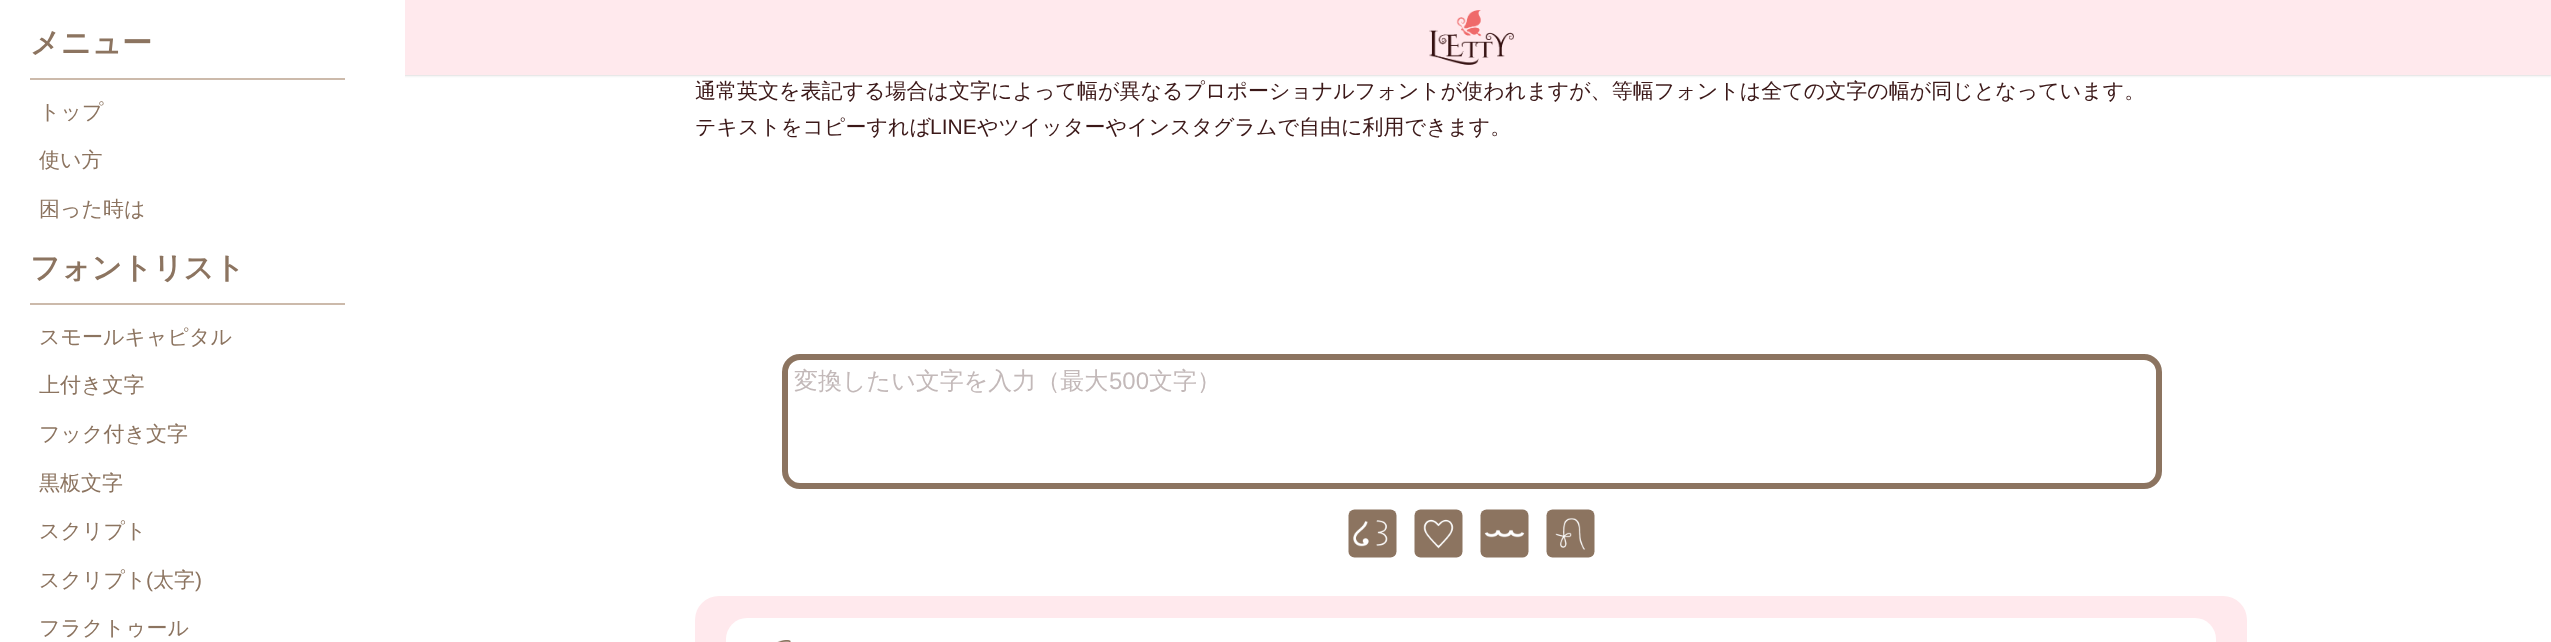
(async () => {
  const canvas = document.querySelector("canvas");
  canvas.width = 2551;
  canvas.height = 642;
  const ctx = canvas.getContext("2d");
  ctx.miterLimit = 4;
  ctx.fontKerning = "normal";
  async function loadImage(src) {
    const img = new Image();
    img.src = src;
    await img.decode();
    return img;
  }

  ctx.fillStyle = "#ffffff";
  ctx.fillRect(0, 0, 2551, 642);
  ctx.fillStyle = "rgba(127, 127, 127, 0.5)";
  ctx.filter = "blur(1.5px)";
  ctx.beginPath();
  ctx.rect(390, 0, 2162, 75);
  ctx.fill();
  ctx.filter = "none";
  for (const [x, y, w, h, color] of [
    [405, 0, 2146, 75, "#ffe9ed"],
    [387, 0, 18, 78, "#ffffff"],
    [30, 78, 315, 2, "#ccbaab"],
    [30, 303, 315, 2, "#ccbaab"],
  ]) {
    ctx.fillStyle = color;
    ctx.fillRect(x, y, w, h);
  }
  ctx.drawImage(await loadImage("img/1.png"), 1429, 10, 85, 55);
  ctx.beginPath();
  ctx.roundRect(785, 357, 1374, 129, 15);
  ctx.strokeStyle = "#8c7460";
  ctx.lineWidth = 6;
  ctx.stroke();
  ctx.drawImage(await loadImage("img/2.png"), 1348, 509, 49, 49);
  ctx.drawImage(await loadImage("img/3.png"), 1414, 509, 49, 49);
  ctx.drawImage(await loadImage("img/4.png"), 1480, 509, 49, 49);
  ctx.drawImage(await loadImage("img/5.png"), 1546, 509, 49, 49);
  ctx.fillStyle = "#ffe9ed";
  ctx.beginPath();
  ctx.roundRect(695, 596, 1552, 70, 24);
  ctx.fill();
  ctx.fillStyle = "#ffffff";
  ctx.beginPath();
  ctx.roundRect(726, 618, 1490, 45, 21);
  ctx.fill();
  ctx.drawImage(await loadImage("img/6.png"), 777, 640, 14, 2);
  ctx.font = "bold 30px WenQuanYi Zen Hei";
  ctx.fillStyle = "#8c7460";
  ctx.fillText("メニュー", 30, 53);
  ctx.font = "500 21px WenQuanYi Zen Hei";
  for (const [text, x, y] of [
    ["トップ", 39, 119],
    ["使い方", 39, 167],
    ["困った時は", 39, 216],
  ]) {
    ctx.fillText(text, x, y);
  }
  ctx.font = "bold 30px WenQuanYi Zen Hei";
  ctx.fillText("フォントリスト", 30, 278);
  ctx.font = "500 21px WenQuanYi Zen Hei";
  for (const [text, x, y] of [
    ["スモールキャピタル", 39, 344],
    ["上付き文字", 39, 392],
    ["フック付き文字", 39, 441],
    ["黒板文字", 39, 490],
    ["スクリプト", 39, 538],
    ["スクリプト", 39, 587],
  ]) {
    ctx.fillText(text, x, y);
  }
  ctx.font = "21px Liberation Sans";
  ctx.fillText("(", 146, 587);
  ctx.font = "500 21px WenQuanYi Zen Hei";
  ctx.fillText("太字", 153, 587);
  ctx.font = "21px Liberation Sans";
  ctx.fillText(")", 195, 587);
  ctx.font = "500 21px WenQuanYi Zen Hei";
  ctx.fillText("フラクトゥール", 39, 635);
  ctx.fillStyle = "#3b1818";
  ctx.fillText("通常英文を表記する場合は文字によって幅が異なるプロポーショナルフォントが使われますが、等幅フォントは全ての文字の幅が同じとなっています。", 695, 98);
  ctx.fillText("テキストをコピーすれば", 695, 134);
  ctx.font = "21px Liberation Sans";
  ctx.fillText("LINE", 930, 134);
  ctx.font = "500 21px WenQuanYi Zen Hei";
  ctx.fillText("やツイッターやインスタグラムで自由に利用できます。", 977, 134);
  ctx.font = "500 24px WenQuanYi Zen Hei";
  ctx.fillStyle = "#c3b9b9";
  ctx.fillText("変換したい文字を入力（最大", 794, 389);
  ctx.font = "24px Liberation Sans";
  ctx.fillText("500", 1109, 389);
  ctx.font = "500 24px WenQuanYi Zen Hei";
  ctx.fillText("文字）", 1149, 389);
})();
